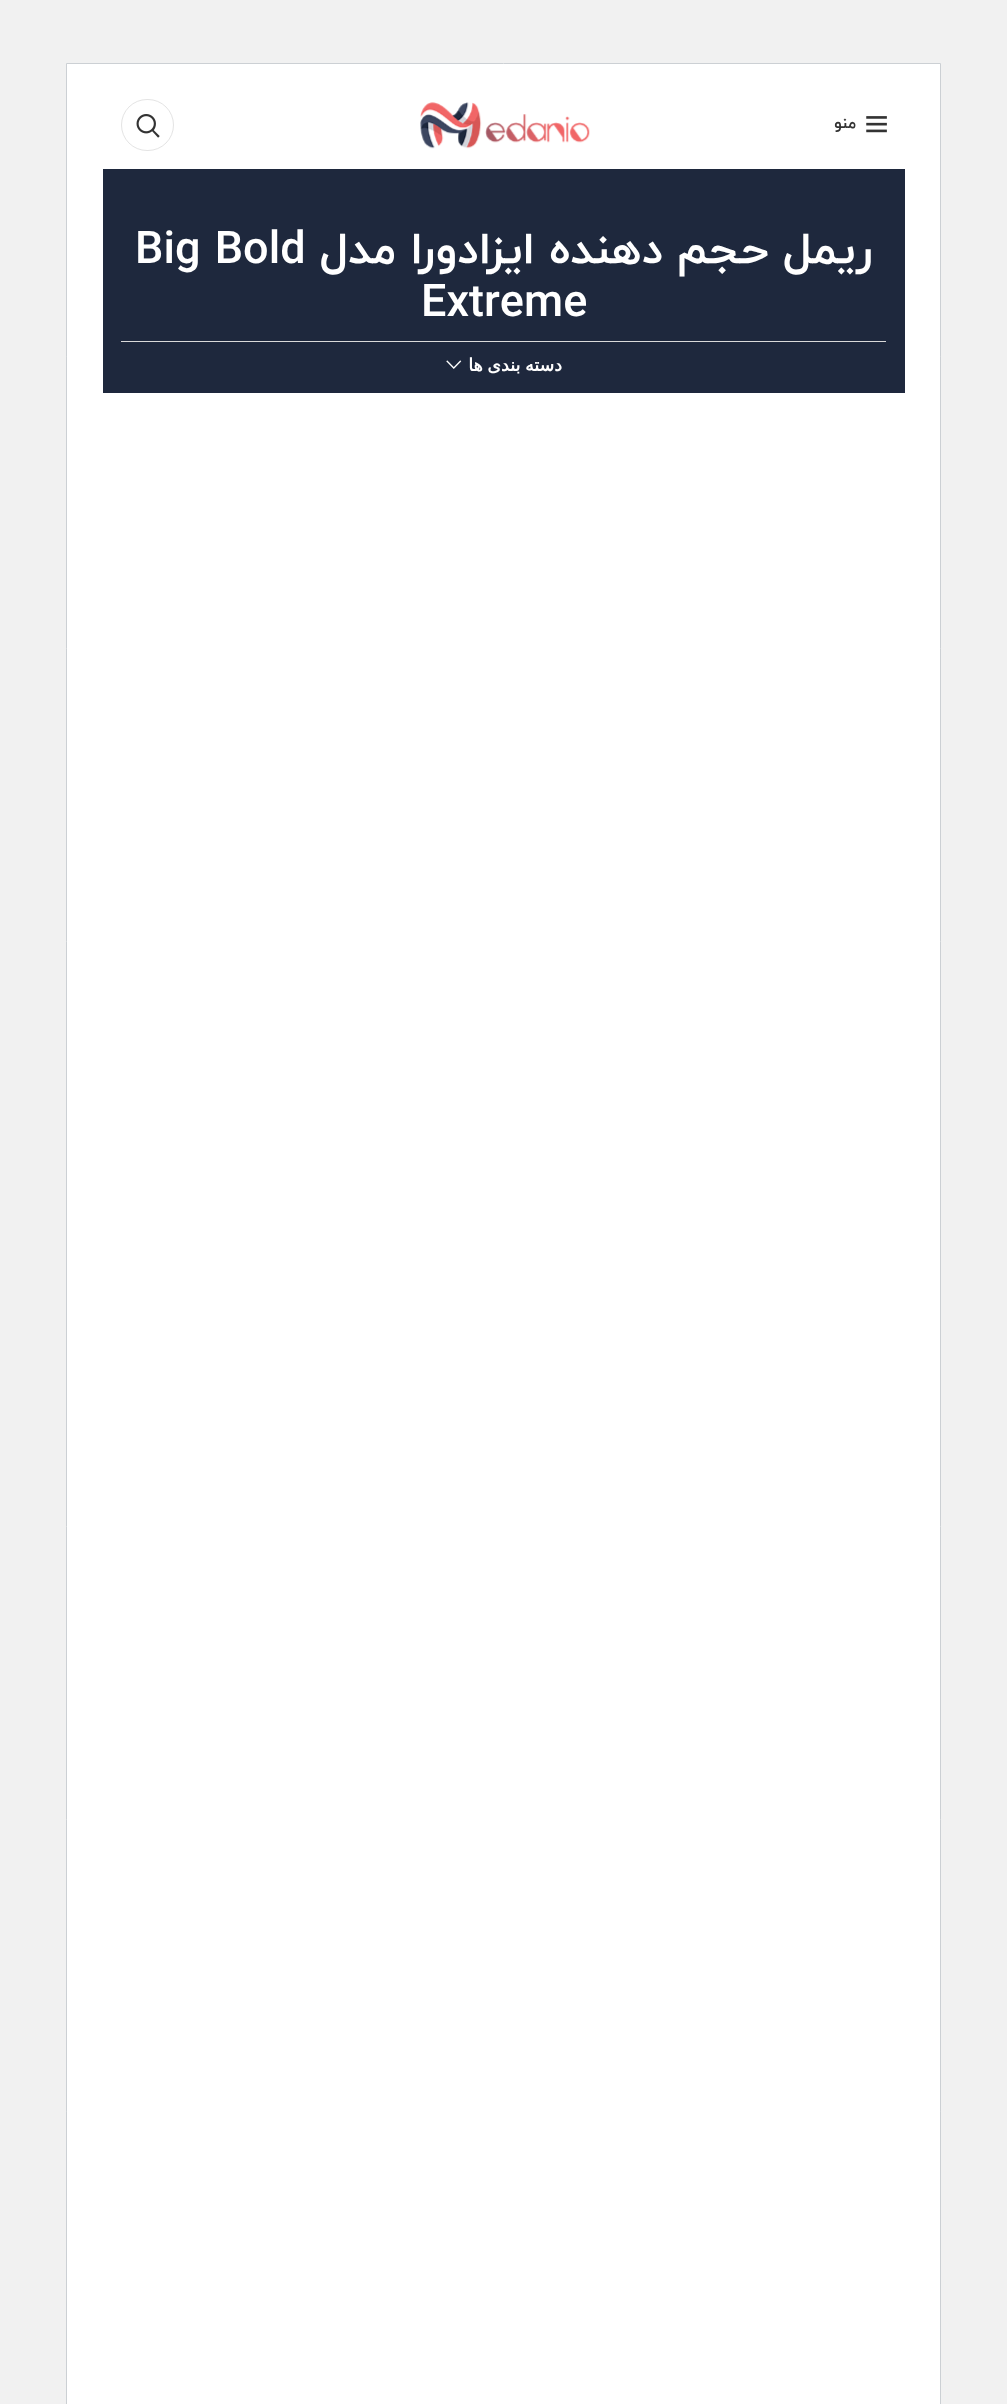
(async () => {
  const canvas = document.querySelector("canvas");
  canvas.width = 1007;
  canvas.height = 2404;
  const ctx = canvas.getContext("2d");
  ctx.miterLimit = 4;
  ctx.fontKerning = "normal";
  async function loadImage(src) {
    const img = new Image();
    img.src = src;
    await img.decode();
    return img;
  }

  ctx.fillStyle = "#f1f1f1";
  ctx.fillRect(0, 0, 1007, 2404);
  ctx.fillStyle = "#ffffff";
  ctx.beginPath();
  ctx.rect(66.5, 63.5, 874, 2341);
  ctx.fill();
  ctx.strokeStyle = "#ccd0d4";
  ctx.stroke();
  ctx.drawImage(await loadImage("img/1.png"), 866, 116, 21, 17);
  ctx.drawImage(await loadImage("img/2.png"), 420, 102, 170, 47);
  ctx.beginPath();
  ctx.roundRect(121.5, 99.5, 52, 51, 25.5);
  ctx.strokeStyle = "#e4e4e4";
  ctx.stroke();
  ctx.drawImage(await loadImage("img/3.png"), 136, 114, 24, 24);
  ctx.fillStyle = "#1e283d";
  ctx.fillRect(103, 169, 802, 224);
  ctx.fillStyle = "#dadada";
  ctx.fillRect(121, 341, 765, 1);
  ctx.drawImage(await loadImage("img/4.png"), 446, 360, 16, 9);
  ctx.direction = "rtl";
  ctx.font = "bold 16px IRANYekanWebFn";
  ctx.fillStyle = "#333333";
  ctx.fillText("منو", 856, 128);
  ctx.font = "bold 45px IRANYekanWebFn";
  ctx.fillStyle = "#ffffff";
  ctx.fillText("ریمل حجم دهنده ایزادورا مدل", 872, 263);
  ctx.direction = "ltr";
  ctx.fillText("Big Bold", 135, 263);
  ctx.fillText("Extreme", 421, 316);
  ctx.wordSpacing = "-1px";
  ctx.direction = "rtl";
  ctx.font = "bold 17.5px DejaVu Sans";
  ctx.fillText("دسته بندی ها", 562, 371);
})();
